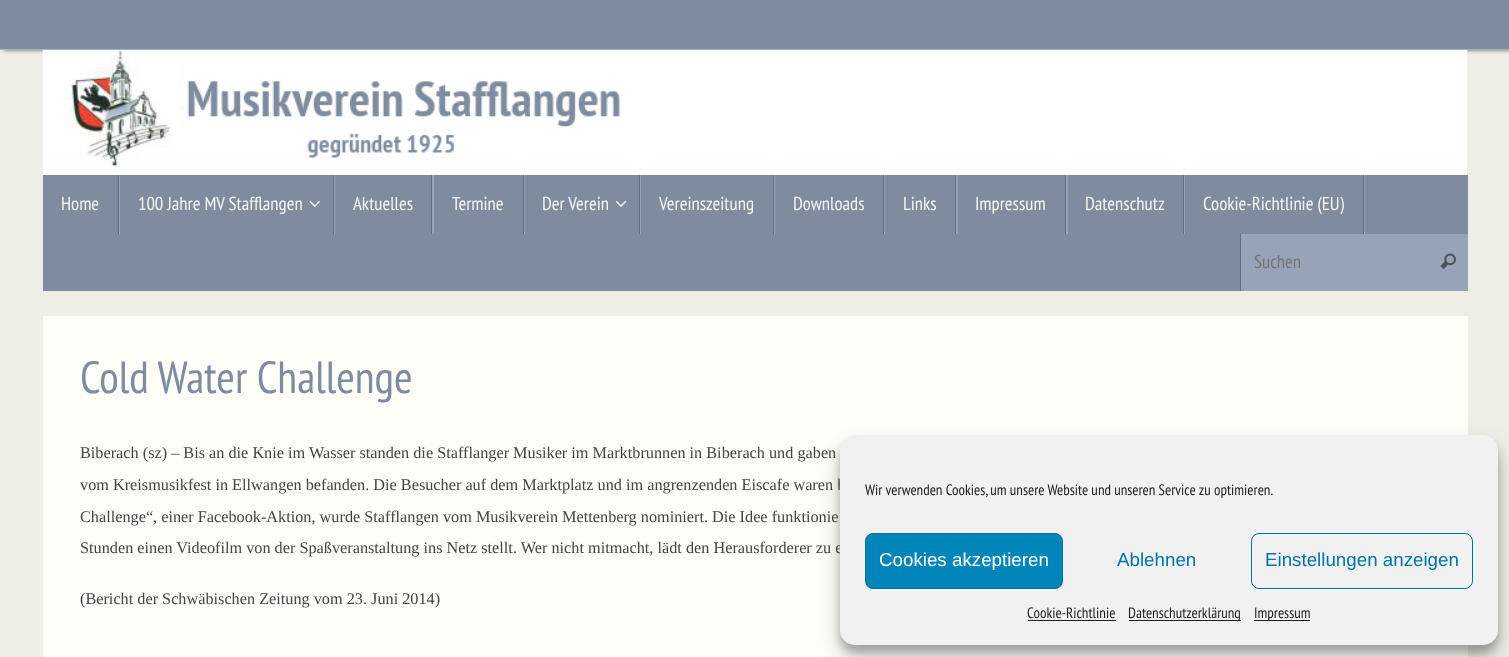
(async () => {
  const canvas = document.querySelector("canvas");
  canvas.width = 1509;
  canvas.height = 657;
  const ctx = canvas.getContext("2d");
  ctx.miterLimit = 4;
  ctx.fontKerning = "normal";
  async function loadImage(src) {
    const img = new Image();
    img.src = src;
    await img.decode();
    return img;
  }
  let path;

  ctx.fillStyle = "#eeede6";
  ctx.fillRect(0, 0, 1509, 657);
  ctx.fillStyle = "#576477";
  ctx.filter = "blur(2px)";
  ctx.beginPath();
  ctx.rect(4, 0, 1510, 50);
  ctx.fill();
  ctx.filter = "none";
  ctx.fillStyle = "#7f8c9f";
  ctx.fillRect(0, 0, 1509, 49);
  ctx.fillStyle = "#a7b4c7";
  ctx.fillRect(0, 49, 1509, 1);
  ctx.drawImage(await loadImage("img/1.png"), 42, 50, 1426, 125);
  ctx.fillStyle = "#7f8c9f";
  ctx.fillRect(43, 175, 1425, 116);
  ctx.fillStyle = "#97a4b7";
  path = new Path2D("M44 234H120V175H119V234Z");
  ctx.fill(path);
  ctx.fillStyle = "#616e81";
  ctx.fillRect(118, 175, 1, 59);
  ctx.fillStyle = "#97a4b7";
  path = new Path2D("M120 234H335V175H334V234Z");
  ctx.fill(path);
  ctx.fillStyle = "#616e81";
  ctx.fillRect(333, 175, 1, 59);
  ctx.drawImage(await loadImage("img/2.png"), 309, 201, 11, 6);
  ctx.fillStyle = "#97a4b7";
  path = new Path2D("M335 234H434V175H432V234Z");
  ctx.fill(path);
  ctx.fillStyle = "#616e81";
  ctx.fillRect(431, 175, 1, 59);
  ctx.fillStyle = "#97a4b7";
  path = new Path2D("M434 234H525V175H524V234Z");
  ctx.fill(path);
  ctx.fillStyle = "#616e81";
  ctx.fillRect(523, 175, 1, 59);
  ctx.fillStyle = "#97a4b7";
  path = new Path2D("M525 234H641V175H640V234Z");
  ctx.fill(path);
  ctx.fillStyle = "#616e81";
  ctx.fillRect(639, 175, 1, 59);
  ctx.drawImage(await loadImage("img/3.png"), 615, 201, 12, 6);
  ctx.fillStyle = "#97a4b7";
  path = new Path2D("M641 234H775V175H774V234Z");
  ctx.fill(path);
  ctx.fillStyle = "#616e81";
  ctx.fillRect(773, 175, 1, 59);
  ctx.fillStyle = "#97a4b7";
  path = new Path2D("M775 234H885V175H884V234Z");
  ctx.fill(path);
  ctx.fillStyle = "#616e81";
  ctx.fillRect(883, 175, 1, 59);
  ctx.fillStyle = "#97a4b7";
  path = new Path2D("M885 234H958V175H956V234Z");
  ctx.fill(path);
  ctx.fillStyle = "#616e81";
  ctx.fillRect(955, 175, 1, 59);
  ctx.fillStyle = "#97a4b7";
  path = new Path2D("M958 234H1068V175H1066V234Z");
  ctx.fill(path);
  ctx.fillStyle = "#616e81";
  ctx.fillRect(1065, 175, 1, 59);
  ctx.fillStyle = "#97a4b7";
  path = new Path2D("M1068 234H1185V175H1184V234Z");
  ctx.fill(path);
  ctx.fillStyle = "#616e81";
  ctx.fillRect(1183, 175, 1, 59);
  ctx.fillStyle = "#97a4b7";
  path = new Path2D("M1185 234H1365V175H1364V234Z");
  ctx.fill(path);
  for (const [x, y, w, h, color] of [
    [1363, 175, 1, 59, "#616e81"],
    [1241, 234, 227, 57, "#97a4b7"],
    [1240, 234, 1, 57, "#616e81"],
  ]) {
    ctx.fillStyle = color;
    ctx.fillRect(x, y, w, h);
  }
  ctx.drawImage(await loadImage("img/4.png"), 1440, 253, 16, 16);
  ctx.fillStyle = "#fffef9";
  ctx.fillRect(43, 316, 1425, 341);
  ctx.fillStyle = "rgba(0, 0, 0, 0.23)";
  ctx.filter = "blur(4px)";
  ctx.beginPath();
  ctx.roundRect(840, 443, 658, 210, 15);
  ctx.fill();
  ctx.filter = "none";
  ctx.fillStyle = "rgba(0, 0, 0, 0.19)";
  ctx.filter = "blur(12.5px)";
  ctx.beginPath();
  ctx.roundRect(840, 448, 658, 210, 15);
  ctx.fill();
  ctx.filter = "none";
  ctx.font = "18.75px PT Sans Narrow";
  ctx.fillStyle = "#f6f5f1";
  for (const [text, x, y] of [
    ["Home", 61, 210],
    ["100 Jahre MV Stafflangen", 138, 210],
    ["Aktuelles", 353, 210],
    ["Termine", 452, 210],
    ["Der Verein", 542, 210],
    ["Vereinszeitung", 659, 210],
    ["Downloads", 793, 210],
    ["Links", 903, 210],
    ["Impressum", 975, 210],
    ["Datenschutz", 1085, 210],
    ["Cookie-Richtlinie (EU)", 1203, 210],
  ]) {
    ctx.fillText(text, x, y);
  }
  ctx.fillStyle = "#757575";
  ctx.fillText("Suchen", 1254, 268);
  ctx.font = "45px PT Sans Narrow";
  ctx.fillStyle = "#7f8c9f";
  ctx.fillText("Cold Water Challenge", 80, 393);
  ctx.font = "16.25px Liberation Serif";
  ctx.fillStyle = "#444444";
  for (const [text, x, y] of [
    ["Biberach (sz) – Bis an die Knie im Wasser standen die Stafflanger Musiker im Marktbrunnen in Biberach und gaben", 80, 458],
    ["vom Kreismusikfest in Ellwangen befanden. Die Besucher auf dem Marktplatz und im angrenzenden Eiscafe waren b", 80, 490],
    ["Challenge“, einer Facebook-Aktion, wurde Stafflangen vom Musikverein Mettenberg nominiert. Die Idee funktionie", 80, 522],
    ["Stunden einen Videofilm von der Spaßveranstaltung ins Netz stellt. Wer nicht mitmacht, lädt den Herausforderer zu e", 80, 553],
    ["(Bericht der Schwäbischen Zeitung vom 23. Juni 2014)", 80, 604],
  ]) {
    ctx.fillText(text, x, y);
  }
  ctx.fillStyle = "#f1f1f1";
  ctx.beginPath();
  ctx.roundRect(840, 435, 658, 210, 15);
  ctx.fill();
  ctx.font = "15px PT Sans Narrow";
  ctx.fillStyle = "#191e23";
  ctx.fillText("Wir verwenden Cookies, um unsere Website und unseren Service zu optimieren.", 865, 495);
  ctx.fillStyle = "#0085ba";
  ctx.beginPath();
  ctx.roundRect(865.5, 533.5, 197, 55, 7.5);
  ctx.fill();
  ctx.strokeStyle = "#0073aa";
  ctx.stroke();
  ctx.font = "18.75px Liberation Sans";
  ctx.fillStyle = "#ffffff";
  ctx.fillText("Cookies akzeptieren", 879, 566);
  ctx.fillStyle = "#0073aa";
  ctx.fillText("Ablehnen", 1117, 566);
  ctx.beginPath();
  ctx.roundRect(1251.5, 533.5, 221, 55, 7.5);
  ctx.stroke();
  ctx.fillText("Einstellungen anzeigen", 1265, 566);
  ctx.font = "15px PT Sans Narrow";
  ctx.fillStyle = "#191e23";
  ctx.fillText("Cookie-Richtlinie", 1027, 618);
  ctx.fillRect(1028, 620, 88, 1);
  ctx.fillRect(1129, 620, 112, 1);
  ctx.fillText("Datenschutzerklärung", 1128, 618);
  ctx.fillRect(1254, 620, 56, 1);
  ctx.fillText("Impressum", 1254, 618);
})();
